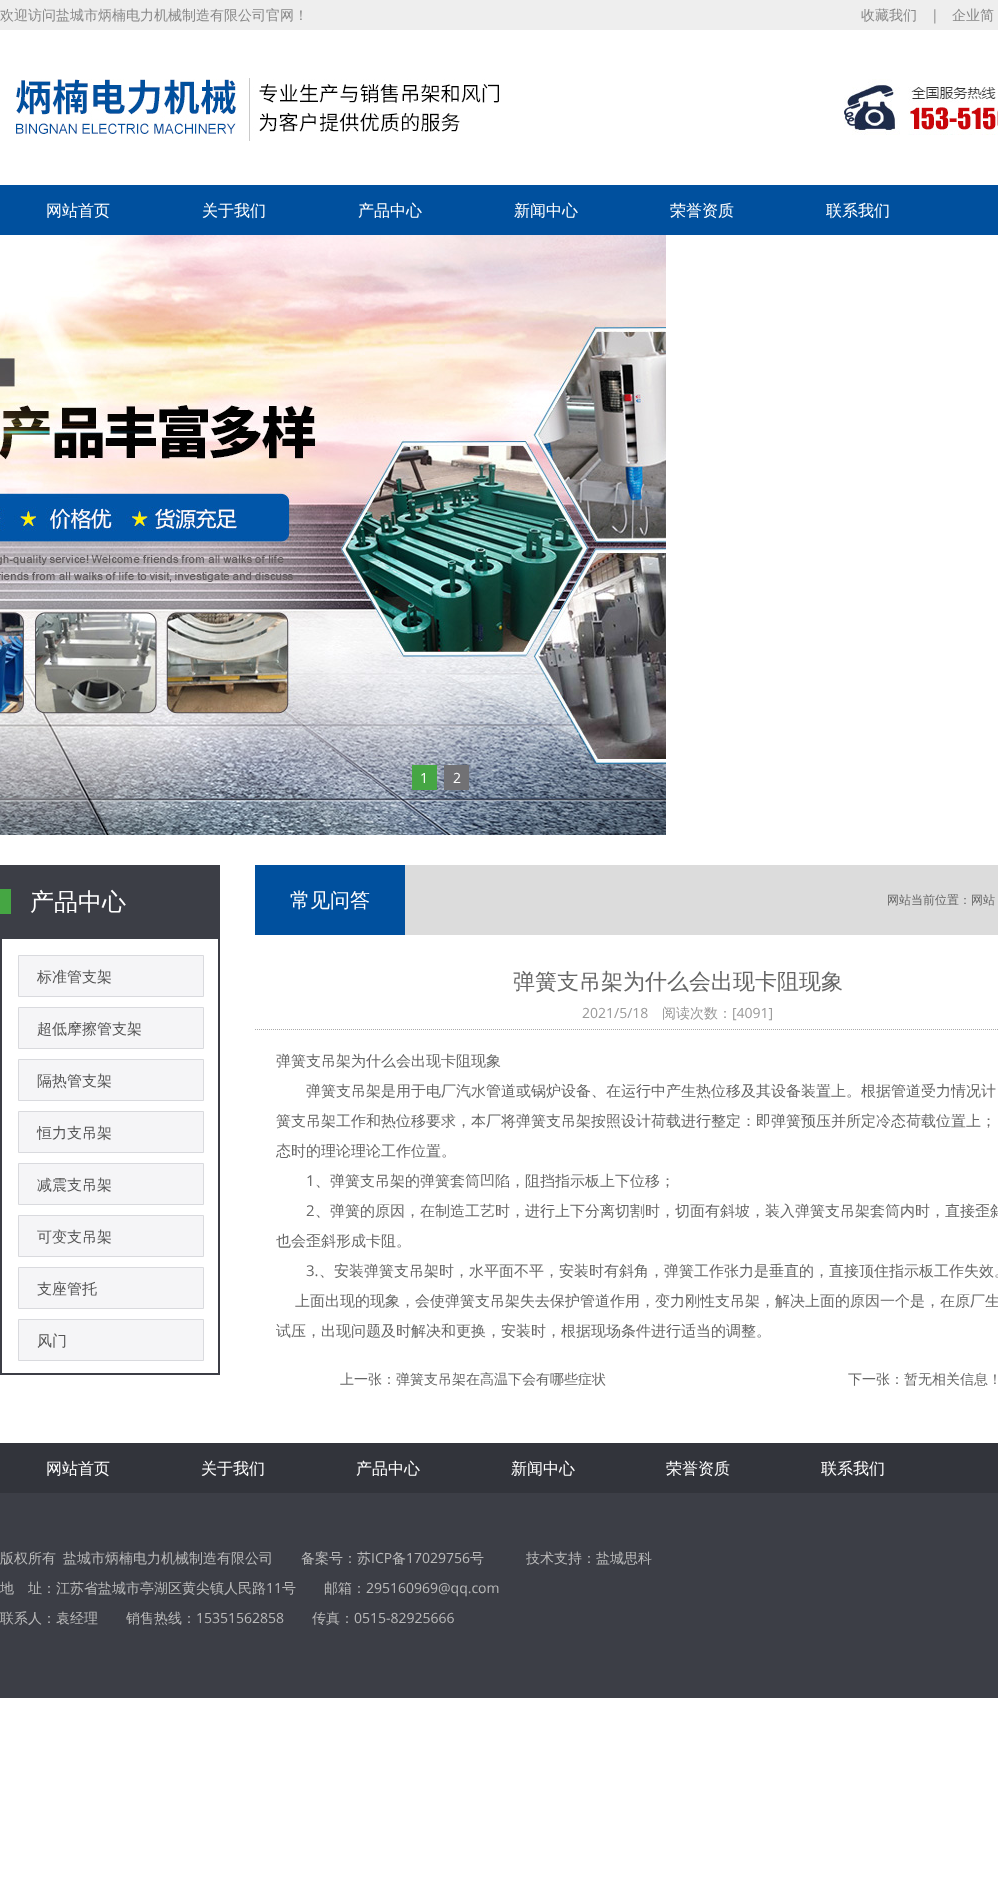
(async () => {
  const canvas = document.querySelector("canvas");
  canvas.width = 998;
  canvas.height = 1891;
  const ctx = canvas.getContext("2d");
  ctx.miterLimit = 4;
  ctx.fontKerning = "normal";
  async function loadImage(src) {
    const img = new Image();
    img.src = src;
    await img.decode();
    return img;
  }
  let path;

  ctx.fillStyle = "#ffffff";
  ctx.fillRect(0, 0, 998, 1891);
  ctx.fillStyle = "#eeeeee";
  ctx.fillRect(0, 0, 998, 30);
  ctx.drawImage(await loadImage("img/1.png"), 16, 78, 982, 63);
  ctx.fillStyle = "#00509e";
  ctx.fillRect(0, 185, 998, 50);
  ctx.drawImage(await loadImage("img/2.png"), 0, 235, 666, 600);
  for (const [x, y, w, h, color] of [
    [412, 765, 25, 25, "#46a644"],
    [444, 765, 25, 25, "#717174"],
    [0, 865, 220, 72, "#3c3e46"],
    [0, 889, 11, 25, "#45a643"],
  ]) {
    ctx.fillStyle = color;
    ctx.fillRect(x, y, w, h);
  }
  ctx.strokeStyle = "#3c3e46";
  ctx.lineWidth = 2;
  ctx.strokeRect(1, 938, 218, 436);
  ctx.fillStyle = "#f5f5f7";
  ctx.beginPath();
  ctx.rect(18.5, 955.5, 185, 41);
  ctx.fill();
  ctx.strokeStyle = "#d9dade";
  ctx.lineWidth = 1;
  ctx.stroke();
  ctx.beginPath();
  ctx.rect(18.5, 1007.5, 185, 41);
  ctx.fill();
  ctx.stroke();
  ctx.beginPath();
  ctx.rect(18.5, 1059.5, 185, 41);
  ctx.fill();
  ctx.stroke();
  ctx.beginPath();
  ctx.rect(18.5, 1111.5, 185, 41);
  ctx.fill();
  ctx.stroke();
  ctx.beginPath();
  ctx.rect(18.5, 1163.5, 185, 41);
  ctx.fill();
  ctx.stroke();
  ctx.beginPath();
  ctx.rect(18.5, 1215.5, 185, 41);
  ctx.fill();
  ctx.stroke();
  ctx.beginPath();
  ctx.rect(18.5, 1267.5, 185, 41);
  ctx.fill();
  ctx.stroke();
  ctx.beginPath();
  ctx.rect(18.5, 1319.5, 185, 41);
  ctx.fill();
  ctx.stroke();
  ctx.fillStyle = "#dcdcdc";
  ctx.fillRect(405, 865, 593, 70);
  ctx.fillStyle = "#00509e";
  ctx.fillRect(255, 865, 150, 70);
  path = new Path2D("M255 1029.5H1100");
  ctx.strokeStyle = "#aaaaaa";
  ctx.setLineDash([1, 1]);
  ctx.stroke(path);
  ctx.fillStyle = "#32343b";
  ctx.fillRect(0, 1443, 998, 50);
  ctx.fillStyle = "#3c3e46";
  ctx.fillRect(0, 1493, 998, 205);
  ctx.font = "500 14px WenQuanYi Zen Hei";
  ctx.fillStyle = "#888888";
  ctx.fillText("欢迎访问盐城市炳楠电力机械制造有限公司官网！", 0, 20);
  ctx.fillText("收藏我们", 861, 20);
  ctx.font = "14px Open Sans";
  ctx.fillText("|", 931, 20);
  ctx.font = "500 14px WenQuanYi Zen Hei";
  ctx.fillText("企业简", 952, 20);
  ctx.font = "500 16px WenQuanYi Zen Hei";
  ctx.fillStyle = "#ffffff";
  for (const [text, x, y] of [
    ["网站首页", 46, 216],
    ["关于我们", 202, 216],
    ["产品中心", 358, 216],
    ["新闻中心", 514, 216],
    ["荣誉资质", 670, 216],
    ["联系我们", 826, 216],
  ]) {
    ctx.fillText(text, x, y);
  }
  ctx.font = "14px Open Sans";
  ctx.fillText("1", 420, 783);
  ctx.fillText("2", 453, 783);
  ctx.font = "500 24px WenQuanYi Zen Hei";
  ctx.fillText("产品中心", 30, 910);
  ctx.font = "500 15px WenQuanYi Zen Hei";
  ctx.fillStyle = "#555555";
  for (const [text, x, y] of [
    ["标准管支架", 37, 982],
    ["超低摩擦管支架", 37, 1034],
    ["隔热管支架", 37, 1086],
    ["恒力支吊架", 37, 1138],
    ["减震支吊架", 37, 1190],
    ["可变支吊架", 37, 1242],
    ["支座管托", 37, 1294],
    ["风门", 37, 1346],
  ]) {
    ctx.fillText(text, x, y);
  }
  ctx.font = "500 20px WenQuanYi Zen Hei";
  ctx.fillStyle = "#ffffff";
  ctx.fillText("常见问答", 290, 907);
  ctx.font = "500 12px WenQuanYi Zen Hei";
  ctx.fillStyle = "#666666";
  ctx.fillText("网站当前位置：网站", 887, 904);
  ctx.font = "500 22px WenQuanYi Zen Hei";
  ctx.fillText("弹簧支吊架为什么会出现卡阻现象", 513, 989);
  ctx.font = "14px Open Sans";
  ctx.fillStyle = "#999999";
  ctx.fillText("2021/5/18", 582, 1018);
  ctx.font = "500 14px WenQuanYi Zen Hei";
  ctx.fillText("阅读次数：", 662, 1018);
  ctx.font = "14px Open Sans";
  ctx.fillText("[4091]", 732, 1018);
  ctx.font = "500 15px WenQuanYi Zen Hei";
  ctx.fillStyle = "#666666";
  for (const [text, x, y] of [
    ["弹簧支吊架为什么会出现卡阻现象", 276, 1066],
    ["弹簧支吊架是用于电厂汽水管道或锅炉设备、在运行中产生热位移及其设备装置上。根据管道受力情况计", 306, 1096],
    ["簧支吊架工作和热位移要求，本厂将弹簧支吊架按照设计荷载进行整定：即弹簧预压并所定冷态荷载位置上；", 276, 1126],
    ["态时的理论理论工作位置。", 276, 1156],
  ]) {
    ctx.fillText(text, x, y);
  }
  ctx.font = "15px Open Sans";
  ctx.fillText("1", 306, 1186);
  ctx.font = "500 15px WenQuanYi Zen Hei";
  ctx.fillText("、弹簧支吊架的弹簧套筒凹陷，阻挡指示板上下位移；", 315, 1186);
  ctx.font = "15px Open Sans";
  ctx.fillText("2", 306, 1216);
  ctx.font = "500 15px WenQuanYi Zen Hei";
  ctx.fillText("、弹簧的原因，在制造工艺时，进行上下分离切割时，切面有斜坡，装入弹簧支吊架套筒内时，直接歪斜", 315, 1216);
  ctx.fillText("也会歪斜形成卡阻。", 276, 1246);
  ctx.font = "15px Open Sans";
  ctx.fillText("3.", 306, 1276);
  ctx.font = "500 15px WenQuanYi Zen Hei";
  for (const [text, x, y] of [
    ["、安装弹簧支吊架时，水平面不平，安装时有斜角，弹簧工作张力是垂直的，直接顶住指示板工作失效。", 319, 1276],
    ["上面出现的现象，会使弹簧支吊架失去保护管道作用，变力刚性支吊架，解决上面的原因一个是，在原厂生", 295, 1306],
    ["试压，出现问题及时解决和更换，安装时，根据现场条件进行适当的调整。", 276, 1336],
  ]) {
    ctx.fillText(text, x, y);
  }
  ctx.font = "500 14px WenQuanYi Zen Hei";
  ctx.fillText("上一张：弹簧支吊架在高温下会有哪些症状", 340, 1384);
  ctx.fillText("下一张：暂无相关信息！", 848, 1384);
  ctx.font = "500 16px WenQuanYi Zen Hei";
  ctx.fillStyle = "#ffffff";
  for (const [text, x, y] of [
    ["网站首页", 46, 1474],
    ["关于我们", 201, 1474],
    ["产品中心", 356, 1474],
    ["新闻中心", 511, 1474],
    ["荣誉资质", 666, 1474],
    ["联系我们", 821, 1474],
  ]) {
    ctx.fillText(text, x, y);
  }
  ctx.font = "500 14px WenQuanYi Zen Hei";
  ctx.fillStyle = "#b9b9b9";
  ctx.fillText("版权所有", 0, 1563);
  ctx.fillText("盐城市炳楠电力机械制造有限公司　　备案号：苏", 63, 1563);
  ctx.font = "14px Open Sans";
  ctx.fillText("ICP", 371, 1563);
  ctx.font = "500 14px WenQuanYi Zen Hei";
  ctx.fillText("备", 392, 1563);
  ctx.font = "14px Open Sans";
  ctx.fillText("17029756", 406, 1563);
  ctx.font = "500 14px WenQuanYi Zen Hei";
  for (const [text, x, y] of [
    ["号", 470, 1563],
    ["技术支持：盐城思科", 526, 1563],
    ["地　址：江苏省盐城市亭湖区黄尖镇人民路", 0, 1593],
  ]) {
    ctx.fillText(text, x, y);
  }
  ctx.font = "14px Open Sans";
  ctx.fillText("11", 266, 1593);
  ctx.font = "500 14px WenQuanYi Zen Hei";
  ctx.fillText("号　　邮箱：", 282, 1593);
  ctx.font = "14px Open Sans";
  ctx.fillText("295160969@qq.com", 366, 1593);
  ctx.font = "500 14px WenQuanYi Zen Hei";
  ctx.fillText("联系人：袁经理　　销售热线：", 0, 1623);
  ctx.font = "14px Open Sans";
  ctx.fillText("15351562858", 196, 1623);
  ctx.font = "500 14px WenQuanYi Zen Hei";
  ctx.fillText("传真：", 312, 1623);
  ctx.font = "14px Open Sans";
  ctx.fillText("0515-82925666", 354, 1623);
})();
